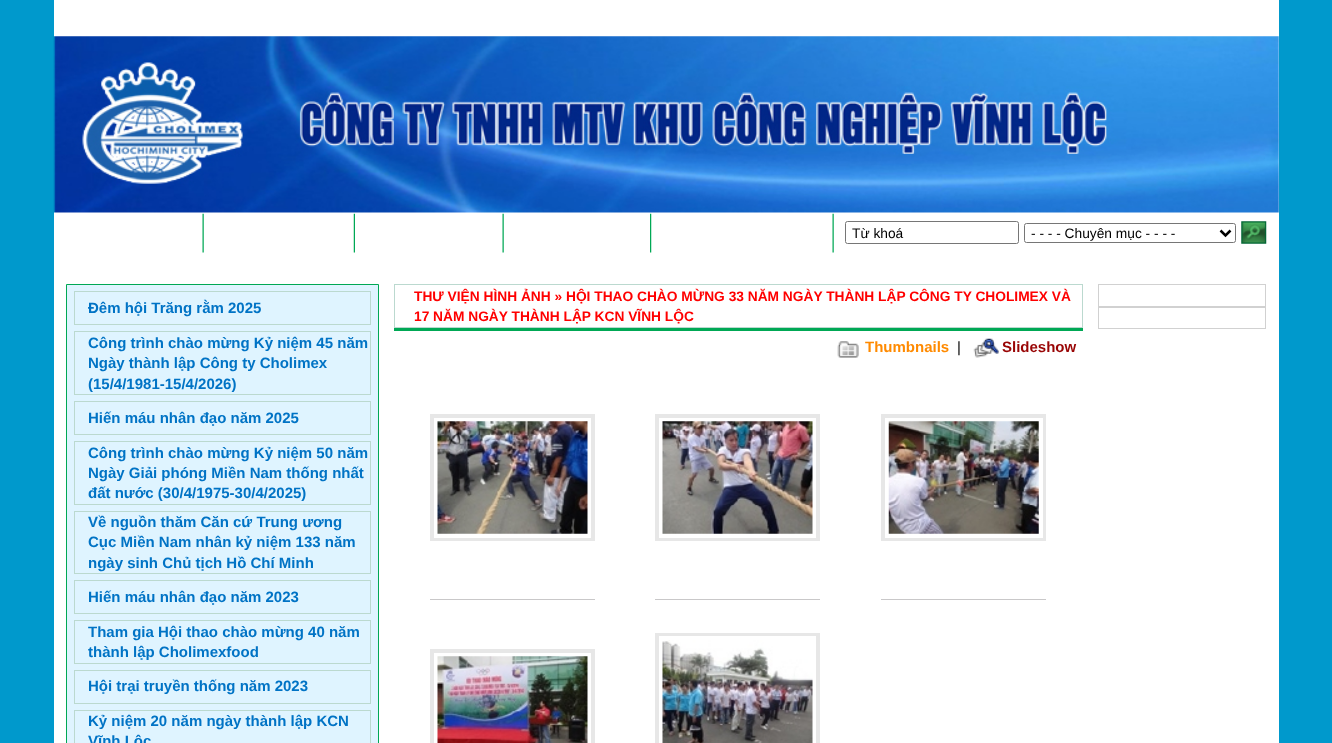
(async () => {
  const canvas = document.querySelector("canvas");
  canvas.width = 1332;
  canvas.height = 743;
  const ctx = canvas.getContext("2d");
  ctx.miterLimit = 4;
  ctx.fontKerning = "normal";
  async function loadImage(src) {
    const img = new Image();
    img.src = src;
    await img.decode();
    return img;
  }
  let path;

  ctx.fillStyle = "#0099cc";
  ctx.fillRect(0, 0, 1332, 743);
  ctx.fillStyle = "#ffffff";
  ctx.fillRect(54, 0, 1225, 743);
  ctx.drawImage(await loadImage("img/1.png"), 53, 36, 1226, 177);
  ctx.drawImage(await loadImage("img/2.png"), 202, 213, 2, 40);
  ctx.drawImage(await loadImage("img/3.png"), 353, 213, 2, 40);
  ctx.drawImage(await loadImage("img/2.png"), 502, 213, 2, 40);
  ctx.drawImage(await loadImage("img/4.png"), 650, 213, 2, 40);
  ctx.drawImage(await loadImage("img/2.png"), 832, 213, 2, 40);
  ctx.beginPath();
  ctx.roundRect(845.5, 221.5, 173, 22, 2);
  ctx.strokeStyle = "#767676";
  ctx.stroke();
  ctx.beginPath();
  ctx.roundRect(1024.5, 223.5, 211, 19, 2);
  ctx.stroke();
  path = new Path2D("M1220.5 230.5L1225.5 235.5L1230.5 230.5");
  ctx.strokeStyle = "#000000";
  ctx.lineWidth = 2.5;
  ctx.stroke(path);
  ctx.drawImage(await loadImage("img/5.png"), 1241, 221, 26, 23);
  ctx.fillStyle = "#dff4ff";
  ctx.beginPath();
  ctx.rect(66.5, 284.5, 312, 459);
  ctx.fill();
  ctx.strokeStyle = "#00a855";
  ctx.lineWidth = 1;
  ctx.stroke();
  ctx.strokeStyle = "#bbd9cf";
  ctx.strokeRect(74.5, 291.5, 296, 33);
  ctx.strokeRect(74.5, 331.5, 296, 63);
  ctx.strokeRect(74.5, 401.5, 296, 33);
  ctx.strokeRect(74.5, 441.5, 296, 63);
  ctx.strokeRect(74.5, 511.5, 296, 62);
  ctx.strokeRect(74.5, 580.5, 296, 33);
  ctx.strokeRect(74.5, 620.5, 296, 43);
  ctx.strokeRect(74.5, 670.5, 296, 33);
  ctx.strokeRect(74.5, 710.5, 296, 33);
  ctx.strokeRect(394.5, 284.5, 688, 43);
  ctx.fillStyle = "#00a855";
  ctx.fillRect(394, 328, 689, 3);
  ctx.drawImage(await loadImage("img/6.png"), 837, 341, 22, 17);
  ctx.drawImage(await loadImage("img/7.png"), 973, 338, 26, 20);
  ctx.fillStyle = "#e7e7e7";
  ctx.fillRect(430, 414, 165, 127);
  ctx.fillStyle = "#ffffff";
  ctx.fillRect(434, 418, 157, 120);
  ctx.drawImage(await loadImage("img/8.png"), 437, 421, 151, 113);
  for (const [x, y, w, h, color] of [
    [430, 599, 165, 1, "#c9c8c9"],
    [655, 414, 165, 127, "#e7e7e7"],
    [659, 418, 157, 120, "#ffffff"],
  ]) {
    ctx.fillStyle = color;
    ctx.fillRect(x, y, w, h);
  }
  ctx.drawImage(await loadImage("img/9.png"), 662, 421, 151, 113);
  for (const [x, y, w, h, color] of [
    [655, 599, 165, 1, "#c9c8c9"],
    [881, 414, 165, 127, "#e7e7e7"],
    [885, 418, 158, 120, "#ffffff"],
  ]) {
    ctx.fillStyle = color;
    ctx.fillRect(x, y, w, h);
  }
  ctx.drawImage(await loadImage("img/10.png"), 888, 421, 151, 113);
  for (const [x, y, w, h, color] of [
    [881, 599, 165, 1, "#c9c8c9"],
    [430, 649, 165, 94, "#e7e7e7"],
    [434, 653, 157, 90, "#ffffff"],
  ]) {
    ctx.fillStyle = color;
    ctx.fillRect(x, y, w, h);
  }
  ctx.drawImage(await loadImage("img/11.png"), 437, 656, 151, 87);
  ctx.fillStyle = "#e7e7e7";
  ctx.fillRect(655, 633, 165, 110);
  ctx.fillStyle = "#ffffff";
  ctx.fillRect(659, 636, 157, 107);
  ctx.drawImage(await loadImage("img/12.png"), 662, 640, 151, 103);
  for (const [x, y, w, h, color] of [
    [1098, 284, 168, 45, "#d1d1d1"],
    [1099, 285, 166, 21, "#ffffff"],
    [1099, 308, 166, 20, "#ffffff"],
  ]) {
    ctx.fillStyle = color;
    ctx.fillRect(x, y, w, h);
  }
  ctx.font = "13.75px Liberation Sans";
  ctx.fillStyle = "#000000";
  ctx.fillText("Từ khoá", 852, 238);
  ctx.fillText("- - - - Chuyên mục - - - -", 1031, 238);
  ctx.font = "bold 15px Liberation Sans";
  ctx.fillStyle = "#0073c5";
  for (const [text, x, y] of [
    ["Đêm hội Trăng rằm 2025", 88, 313],
    ["Công trình chào mừng Kỷ niệm 45 năm", 88, 348],
    ["Ngày thành lập Công ty Cholimex", 88, 368],
    ["(15/4/1981-15/4/2026)", 88, 389],
    ["Hiến máu nhân đạo năm 2025", 88, 423],
    ["Công trình chào mừng Kỷ niệm 50 năm", 88, 458],
    ["Ngày Giải phóng Miền Nam thống nhất", 88, 478],
    ["đất nước (30/4/1975-30/4/2025)", 88, 498],
    ["Về nguồn thăm Căn cứ Trung ương", 88, 527],
    ["Cục Miền Nam nhân kỷ niệm 133 năm", 88, 547],
    ["ngày sinh Chủ tịch Hồ Chí Minh", 88, 568],
    ["Hiến máu nhân đạo năm 2023", 88, 602],
    ["Tham gia Hội thao chào mừng 40 năm", 88, 637],
    ["thành lập Cholimexfood", 88, 657],
    ["Hội trại truyền thống năm 2023", 88, 691],
    ["Kỷ niệm 20 năm ngày thành lập KCN", 88, 726],
    ["Vĩnh Lộc", 88, 746],
  ]) {
    ctx.fillText(text, x, y);
  }
  ctx.font = "bold 13.75px Liberation Sans";
  ctx.fillStyle = "#ff0000";
  ctx.fillText("THƯ VIỆN HÌNH ẢNH » HỘI THAO CHÀO MỪNG 33 NĂM NGÀY THÀNH LẬP CÔNG TY CHOLIMEX VÀ", 414, 301);
  ctx.fillText("17 NĂM NGÀY THÀNH LẬP KCN VĨNH LỘC", 414, 321);
  ctx.font = "bold 15px Liberation Sans";
  ctx.fillStyle = "#ff8a00";
  ctx.fillText("Thumbnails", 865, 352);
  ctx.font = "15px Liberation Sans";
  ctx.fillStyle = "#000000";
  ctx.fillText("|", 957, 352);
  ctx.font = "bold 15px Liberation Sans";
  ctx.fillStyle = "#990505";
  ctx.fillText("Slideshow", 1002, 352);
})();
